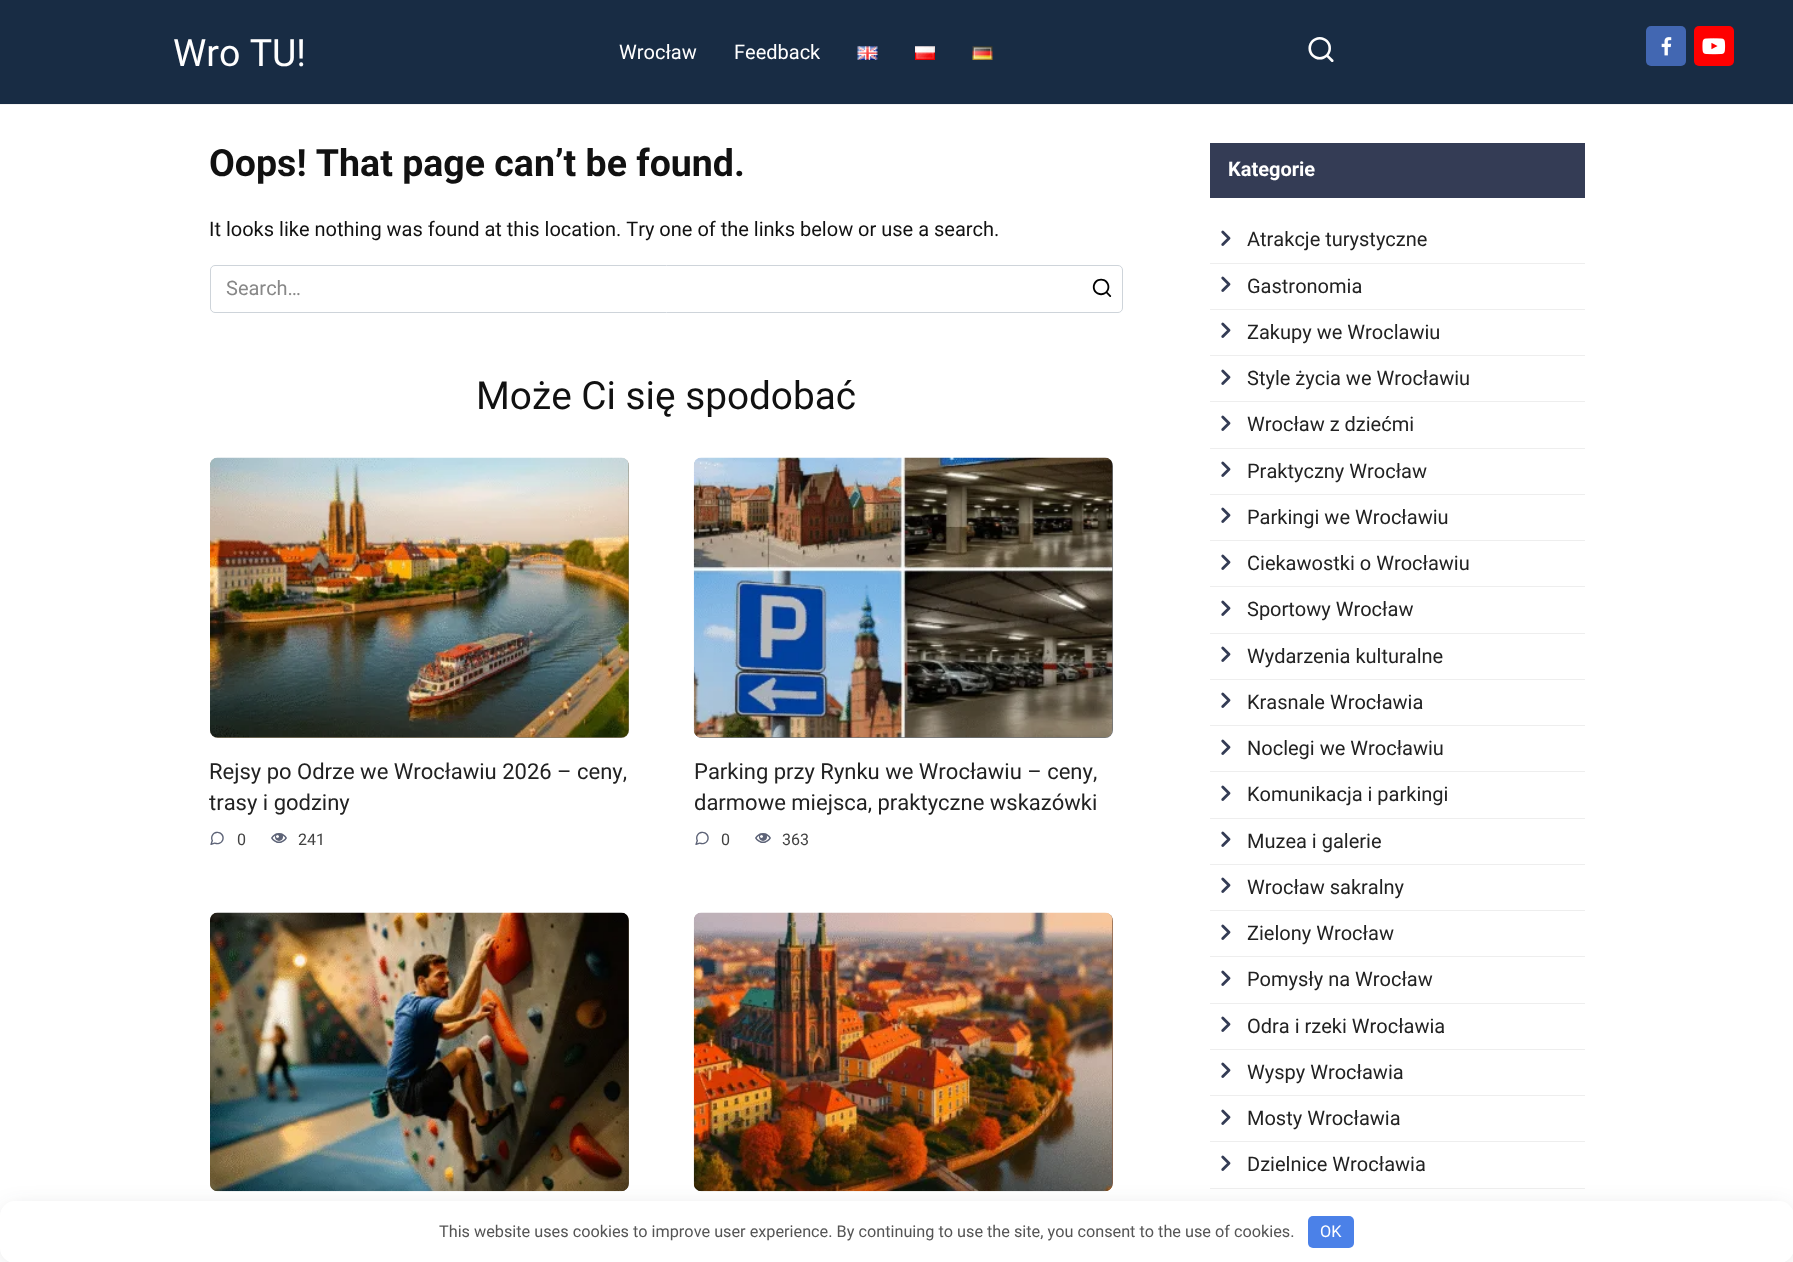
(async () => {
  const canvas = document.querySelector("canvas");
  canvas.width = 1793;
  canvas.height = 1262;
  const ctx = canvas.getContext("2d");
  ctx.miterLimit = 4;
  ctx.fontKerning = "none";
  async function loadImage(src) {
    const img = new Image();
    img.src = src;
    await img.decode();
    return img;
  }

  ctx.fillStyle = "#ffffff";
  ctx.fillRect(0, 0, 1793, 1262);
  ctx.fillStyle = "#182c44";
  ctx.fillRect(0, 0, 1793, 104);
  ctx.fillStyle = "#f3f3f3";
  ctx.fillRect(0, 104, 1793, 1);
  ctx.drawImage(await loadImage("img/1.png"), 857, 46, 21, 14);
  ctx.drawImage(await loadImage("img/2.png"), 915, 46, 20, 14);
  ctx.drawImage(await loadImage("img/3.png"), 972, 46, 21, 14);
  ctx.fillStyle = "#4267b2";
  ctx.beginPath();
  ctx.roundRect(1646, 26, 40, 40, 5);
  ctx.fill();
  ctx.drawImage(await loadImage("img/4.png"), 1661, 37, 11, 19);
  ctx.fillStyle = "#ff0000";
  ctx.beginPath();
  ctx.roundRect(1694, 26, 40, 40, 5);
  ctx.fill();
  ctx.drawImage(await loadImage("img/5.png"), 1702, 38, 24, 17);
  ctx.beginPath();
  ctx.roundRect(210.5, 265.5, 912, 47, 4.5);
  ctx.strokeStyle = "#ced4da";
  ctx.stroke();
  ctx.fillStyle = "#847a65";
  ctx.beginPath();
  ctx.roundRect(210, 458, 419, 280, 8);
  ctx.fill();
  ctx.drawImage(await loadImage("img/6.png"), 210, 457, 419, 281);
  ctx.fillStyle = "#6e7378";
  ctx.beginPath();
  ctx.roundRect(694, 458, 419, 280, 8);
  ctx.fill();
  ctx.drawImage(await loadImage("img/7.png"), 693, 457, 420, 281);
  ctx.fillStyle = "#635744";
  ctx.beginPath();
  ctx.roundRect(210, 913, 419, 278, 8);
  ctx.fill();
  ctx.drawImage(await loadImage("img/8.png"), 210, 912, 419, 280);
  ctx.fillStyle = "#865e44";
  ctx.beginPath();
  ctx.roundRect(694, 913, 419, 278, 8);
  ctx.fill();
  ctx.drawImage(await loadImage("img/9.png"), 693, 912, 420, 280);
  for (const [x, y, w, h, color] of [
    [1210, 143, 375, 55, "#343c55"],
    [1210, 263, 375, 1, "#eeeeee"],
    [1210, 309, 375, 1, "#eeeeee"],
    [1210, 355, 375, 1, "#eeeeee"],
    [1210, 401, 375, 1, "#eeeeee"],
    [1210, 448, 375, 1, "#eeeeee"],
    [1210, 494, 375, 1, "#eeeeee"],
    [1210, 540, 375, 1, "#eeeeee"],
    [1210, 586, 375, 1, "#eeeeee"],
    [1210, 633, 375, 1, "#eeeeee"],
    [1210, 679, 375, 1, "#eeeeee"],
    [1210, 725, 375, 1, "#eeeeee"],
    [1210, 771, 375, 1, "#eeeeee"],
    [1210, 818, 375, 1, "#eeeeee"],
    [1210, 864, 375, 1, "#eeeeee"],
    [1210, 910, 375, 1, "#eeeeee"],
    [1210, 956, 375, 1, "#eeeeee"],
    [1210, 1003, 375, 1, "#eeeeee"],
    [1210, 1049, 375, 1, "#eeeeee"],
    [1210, 1095, 375, 1, "#eeeeee"],
    [1210, 1141, 375, 1, "#eeeeee"],
    [1210, 1188, 375, 1, "#eeeeee"],
  ]) {
    ctx.fillStyle = color;
    ctx.fillRect(x, y, w, h);
  }
  ctx.fillStyle = "rgba(41, 44, 56, 0.2)";
  ctx.filter = "blur(12.5px)";
  ctx.beginPath();
  ctx.roundRect(6, 1211, 1782, 49, 9);
  ctx.fill();
  ctx.filter = "none";
  ctx.fillStyle = "#ffffff";
  ctx.beginPath();
  ctx.roundRect(0, 1201, 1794, 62, 15);
  ctx.fill();
  ctx.fillStyle = "#4b81e8";
  ctx.beginPath();
  ctx.roundRect(1308, 1216, 46, 32, 5);
  ctx.fill();
  ctx.font = "37.5px Roboto";
  ctx.fillStyle = "#ffffff";
  ctx.fillText("Wro TU!", 173, 66);
  ctx.font = "20px Roboto";
  ctx.fillText("Wrocław", 619, 59);
  ctx.fillText("Feedback", 734, 59);
  ctx.font = "30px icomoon";
  ctx.fillText("🔍", 1306, 62);
  ctx.font = "bold 37.5px Roboto";
  ctx.fillStyle = "#111111";
  ctx.fillText("Oops! That page can’t be found.", 209, 176);
  ctx.font = "20px Roboto";
  ctx.fillText("It looks like nothing was found at this location. Try one of the links below or use a search.", 209, 236);
  ctx.fillStyle = "#888888";
  ctx.fillText("Search…", 226, 295);
  ctx.font = "22px icomoon";
  ctx.fillStyle = "#000000";
  ctx.fillText("🔍", 1091, 297);
  ctx.font = "38.75px Roboto";
  ctx.fillStyle = "#111111";
  ctx.fillText("Może Ci się spodobać", 476, 409);
  ctx.font = "22px Roboto";
  ctx.fillStyle = "#222222";
  ctx.fillText("Rejsy po Odrze we Wrocławiu 2026 – ceny,", 209, 779);
  ctx.fillText("trasy i godziny", 209, 810);
  ctx.font = "16px icomoon";
  ctx.fillStyle = "#5d6377";
  ctx.fillText("💭", 209, 845);
  ctx.font = "16px Roboto";
  ctx.fillStyle = "#414141";
  ctx.fillText("0", 237, 845);
  ctx.font = "16px icomoon";
  ctx.fillStyle = "#5d6377";
  ctx.fillText("👁", 271, 845);
  ctx.font = "16px Roboto";
  ctx.fillStyle = "#414141";
  ctx.fillText("241", 298, 845);
  ctx.font = "22px Roboto";
  ctx.fillStyle = "#222222";
  ctx.fillText("Parking przy Rynku we Wrocławiu – ceny,", 694, 779);
  ctx.fillText("darmowe miejsca, praktyczne wskazówki", 694, 810);
  ctx.font = "16px icomoon";
  ctx.fillStyle = "#5d6377";
  ctx.fillText("💭", 694, 845);
  ctx.font = "16px Roboto";
  ctx.fillStyle = "#414141";
  ctx.fillText("0", 721, 845);
  ctx.font = "16px icomoon";
  ctx.fillStyle = "#5d6377";
  ctx.fillText("👁", 755, 845);
  ctx.font = "16px Roboto";
  ctx.fillStyle = "#414141";
  ctx.fillText("363", 782, 845);
  ctx.font = "bold 20px Roboto";
  ctx.fillStyle = "#ffffff";
  ctx.fillText("Kategorie", 1228, 176);
  ctx.font = "bold 25px icomoon";
  ctx.fillStyle = "#343c55";
  ctx.fillText("⮞", 1213, 249);
  ctx.font = "20px Roboto";
  ctx.fillStyle = "#222222";
  ctx.fillText("Atrakcje turystyczne", 1247, 246);
  ctx.font = "bold 25px icomoon";
  ctx.fillStyle = "#343c55";
  ctx.fillText("⮞", 1213, 295);
  ctx.font = "20px Roboto";
  ctx.fillStyle = "#222222";
  ctx.fillText("Gastronomia", 1247, 293);
  ctx.font = "bold 25px icomoon";
  ctx.fillStyle = "#343c55";
  ctx.fillText("⮞", 1213, 341);
  ctx.font = "20px Roboto";
  ctx.fillStyle = "#222222";
  ctx.fillText("Zakupy we Wroclawiu", 1247, 339);
  ctx.font = "bold 25px icomoon";
  ctx.fillStyle = "#343c55";
  ctx.fillText("⮞", 1213, 388);
  ctx.font = "20px Roboto";
  ctx.fillStyle = "#222222";
  ctx.fillText("Style życia we Wrocławiu", 1247, 385);
  ctx.font = "bold 25px icomoon";
  ctx.fillStyle = "#343c55";
  ctx.fillText("⮞", 1213, 434);
  ctx.font = "20px Roboto";
  ctx.fillStyle = "#222222";
  ctx.fillText("Wrocław z dziećmi", 1247, 431);
  ctx.font = "bold 25px icomoon";
  ctx.fillStyle = "#343c55";
  ctx.fillText("⮞", 1213, 480);
  ctx.font = "20px Roboto";
  ctx.fillStyle = "#222222";
  ctx.fillText("Praktyczny Wrocław", 1247, 478);
  ctx.font = "bold 25px icomoon";
  ctx.fillStyle = "#343c55";
  ctx.fillText("⮞", 1213, 526);
  ctx.font = "20px Roboto";
  ctx.fillStyle = "#222222";
  ctx.fillText("Parkingi we Wrocławiu", 1247, 524);
  ctx.font = "bold 25px icomoon";
  ctx.fillStyle = "#343c55";
  ctx.fillText("⮞", 1213, 573);
  ctx.font = "20px Roboto";
  ctx.fillStyle = "#222222";
  ctx.fillText("Ciekawostki o Wrocławiu", 1247, 570);
  ctx.font = "bold 25px icomoon";
  ctx.fillStyle = "#343c55";
  ctx.fillText("⮞", 1213, 619);
  ctx.font = "20px Roboto";
  ctx.fillStyle = "#222222";
  ctx.fillText("Sportowy Wrocław", 1247, 616);
  ctx.font = "bold 25px icomoon";
  ctx.fillStyle = "#343c55";
  ctx.fillText("⮞", 1213, 665);
  ctx.font = "20px Roboto";
  ctx.fillStyle = "#222222";
  ctx.fillText("Wydarzenia kulturalne", 1247, 663);
  ctx.font = "bold 25px icomoon";
  ctx.fillStyle = "#343c55";
  ctx.fillText("⮞", 1213, 711);
  ctx.font = "20px Roboto";
  ctx.fillStyle = "#222222";
  ctx.fillText("Krasnale Wrocławia", 1247, 709);
  ctx.font = "bold 25px icomoon";
  ctx.fillStyle = "#343c55";
  ctx.fillText("⮞", 1213, 758);
  ctx.font = "20px Roboto";
  ctx.fillStyle = "#222222";
  ctx.fillText("Noclegi we Wrocławiu", 1247, 755);
  ctx.font = "bold 25px icomoon";
  ctx.fillStyle = "#343c55";
  ctx.fillText("⮞", 1213, 804);
  ctx.font = "20px Roboto";
  ctx.fillStyle = "#222222";
  ctx.fillText("Komunikacja i parkingi", 1247, 801);
  ctx.font = "bold 25px icomoon";
  ctx.fillStyle = "#343c55";
  ctx.fillText("⮞", 1213, 850);
  ctx.font = "20px Roboto";
  ctx.fillStyle = "#222222";
  ctx.fillText("Muzea i galerie", 1247, 848);
  ctx.font = "bold 25px icomoon";
  ctx.fillStyle = "#343c55";
  ctx.fillText("⮞", 1213, 896);
  ctx.font = "20px Roboto";
  ctx.fillStyle = "#222222";
  ctx.fillText("Wrocław sakralny", 1247, 894);
  ctx.font = "bold 25px icomoon";
  ctx.fillStyle = "#343c55";
  ctx.fillText("⮞", 1213, 943);
  ctx.font = "20px Roboto";
  ctx.fillStyle = "#222222";
  ctx.fillText("Zielony Wrocław", 1247, 940);
  ctx.font = "bold 25px icomoon";
  ctx.fillStyle = "#343c55";
  ctx.fillText("⮞", 1213, 989);
  ctx.font = "20px Roboto";
  ctx.fillStyle = "#222222";
  ctx.fillText("Pomysły na Wrocław", 1247, 986);
  ctx.font = "bold 25px icomoon";
  ctx.fillStyle = "#343c55";
  ctx.fillText("⮞", 1213, 1035);
  ctx.font = "20px Roboto";
  ctx.fillStyle = "#222222";
  ctx.fillText("Odra i rzeki Wrocławia", 1247, 1033);
  ctx.font = "bold 25px icomoon";
  ctx.fillStyle = "#343c55";
  ctx.fillText("⮞", 1213, 1081);
  ctx.font = "20px Roboto";
  ctx.fillStyle = "#222222";
  ctx.fillText("Wyspy Wrocławia", 1247, 1079);
  ctx.font = "bold 25px icomoon";
  ctx.fillStyle = "#343c55";
  ctx.fillText("⮞", 1213, 1128);
  ctx.font = "20px Roboto";
  ctx.fillStyle = "#222222";
  ctx.fillText("Mosty Wrocławia", 1247, 1125);
  ctx.font = "bold 25px icomoon";
  ctx.fillStyle = "#343c55";
  ctx.fillText("⮞", 1213, 1174);
  ctx.font = "20px Roboto";
  ctx.fillStyle = "#222222";
  ctx.fillText("Dzielnice Wrocławia", 1247, 1171);
  ctx.font = "16.25px Roboto";
  ctx.fillStyle = "#555555";
  ctx.fillText("This website uses cookies to improve user experience. By continuing to use the site, you consent to the use of cookies.", 439, 1237);
  ctx.fillStyle = "#ffffff";
  ctx.fillText("OK", 1320, 1237);
})();
